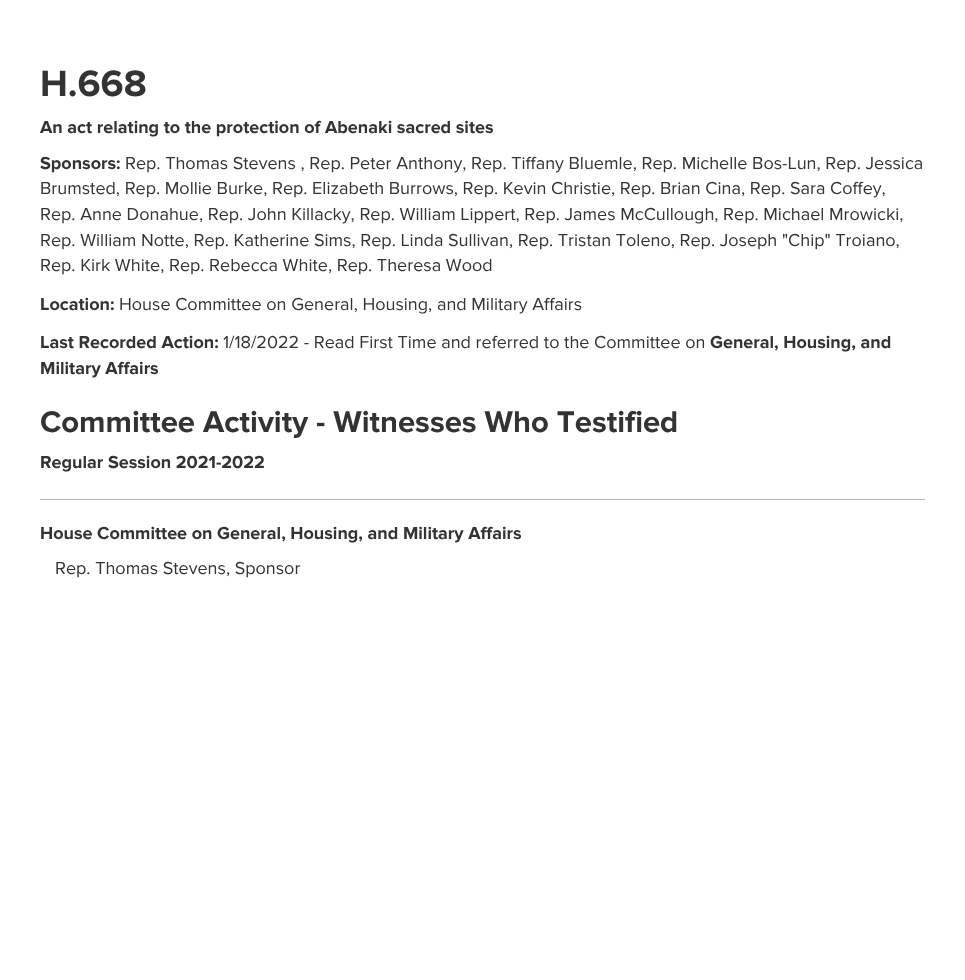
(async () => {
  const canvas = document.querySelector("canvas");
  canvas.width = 965;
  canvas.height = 980;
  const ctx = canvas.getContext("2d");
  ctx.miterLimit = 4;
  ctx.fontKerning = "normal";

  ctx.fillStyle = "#ffffff";
  ctx.fillRect(0, 0, 965, 980);
  ctx.fillStyle = "#b9b6ad";
  ctx.fillRect(40, 499, 885, 1);
  ctx.font = "bold 38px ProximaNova";
  ctx.fillStyle = "#333333";
  ctx.fillText("H.668", 40, 96);
  ctx.font = "bold 18px ProximaNova";
  ctx.fillText("An act relating to the protection of Abenaki sacred sites", 40, 133);
  ctx.fillText("Sponsors:", 40, 169);
  ctx.font = "18px ProximaNova";
  for (const [text, x, y] of [
    ["Rep. Thomas Stevens , Rep. Peter Anthony, Rep. Tiffany Bluemle, Rep. Michelle Bos-Lun, Rep. Jessica", 125, 169],
    ["Brumsted, Rep. Mollie Burke, Rep. Elizabeth Burrows, Rep. Kevin Christie, Rep. Brian Cina, Rep. Sara Coffey,", 40, 194],
    ["Rep. Anne Donahue, Rep. John Killacky, Rep. William Lippert, Rep. James McCullough, Rep. Michael Mrowicki,", 40, 220],
    ["Rep. William Notte, Rep. Katherine Sims, Rep. Linda Sullivan, Rep. Tristan Toleno, Rep. Joseph \"Chip\" Troiano,", 40, 246],
    ["Rep. Kirk White, Rep. Rebecca White, Rep. Theresa Wood", 40, 271],
  ]) {
    ctx.fillText(text, x, y);
  }
  ctx.font = "bold 18px ProximaNova";
  ctx.fillText("Location:", 40, 310);
  ctx.font = "18px ProximaNova";
  ctx.fillText("House Committee on General, Housing, and Military Affairs", 119, 310);
  ctx.font = "bold 18px ProximaNova";
  ctx.fillText("Last Recorded Action:", 40, 348);
  ctx.font = "18px ProximaNova";
  ctx.fillText("1/18/2022 - Read First Time and referred to the Committee on", 223, 348);
  ctx.font = "bold 18px ProximaNova";
  ctx.fillText("General, Housing, and", 710, 348);
  ctx.fillText("Military Affairs", 40, 374);
  ctx.font = "bold 31px ProximaNova";
  ctx.fillText("Committee Activity - Witnesses Who Testified", 40, 432);
  ctx.font = "bold 18px ProximaNova";
  ctx.fillText("Regular Session 2021-2022", 40, 468);
  ctx.fillText("House Committee on General, Housing, and Military Affairs", 40, 539);
  ctx.font = "18px ProximaNova";
  ctx.fillText("Rep. Thomas Stevens, Sponsor", 55, 574);
})();
